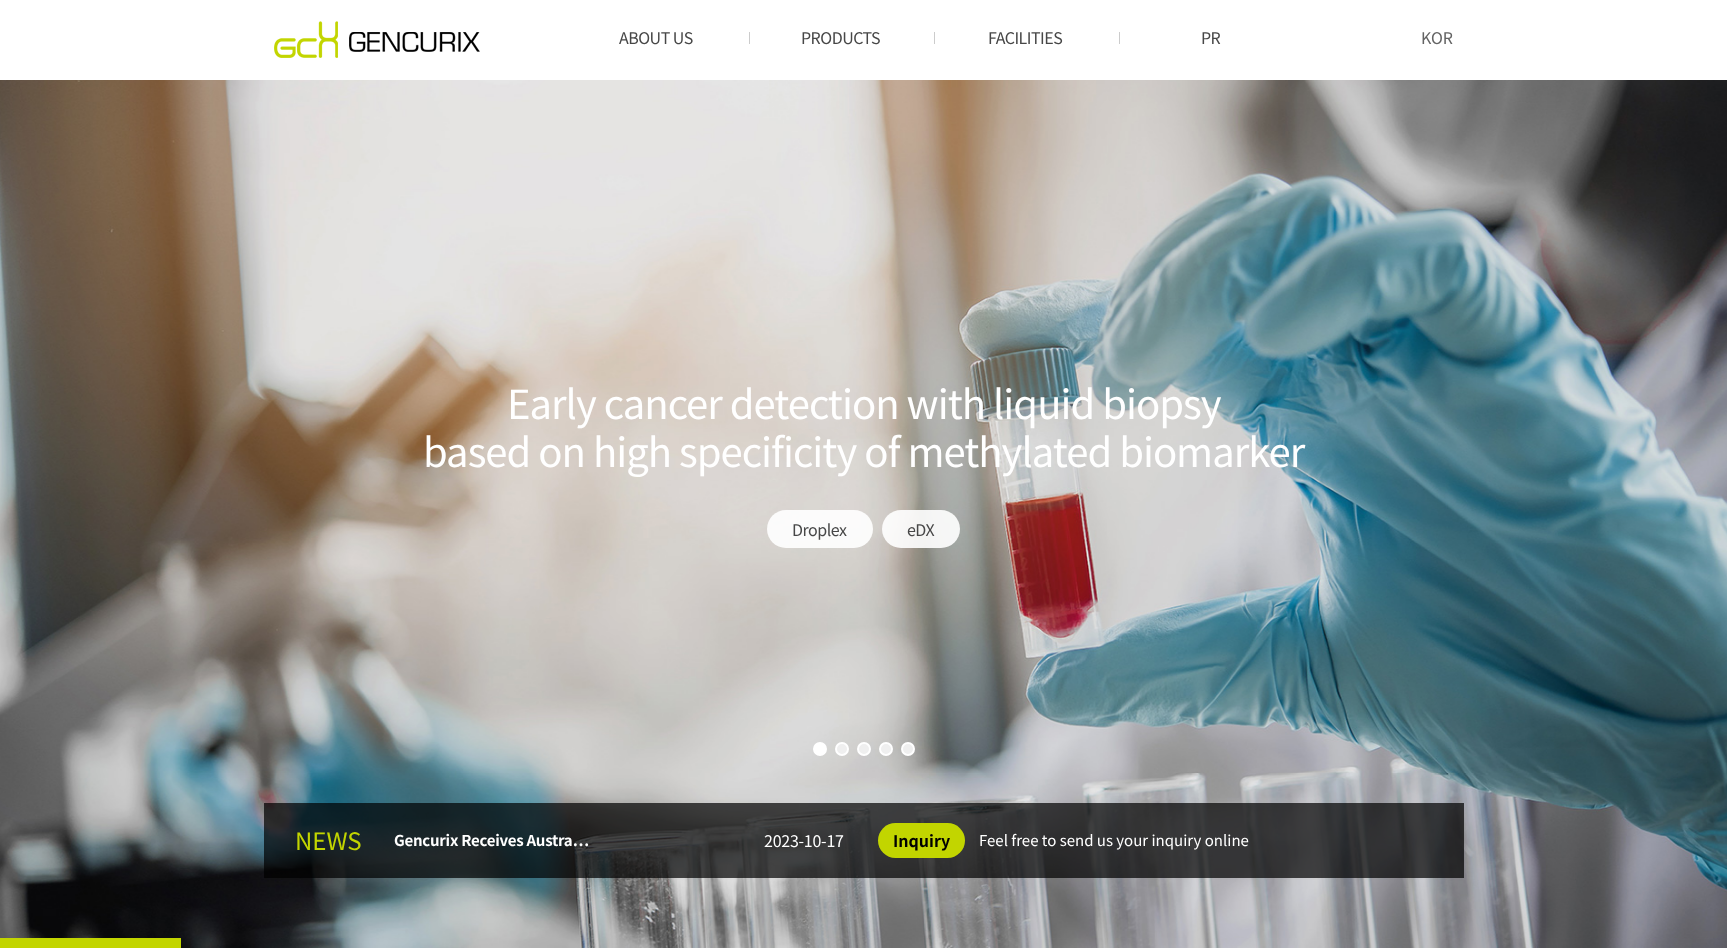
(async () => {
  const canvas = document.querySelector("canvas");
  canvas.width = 1727;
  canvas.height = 948;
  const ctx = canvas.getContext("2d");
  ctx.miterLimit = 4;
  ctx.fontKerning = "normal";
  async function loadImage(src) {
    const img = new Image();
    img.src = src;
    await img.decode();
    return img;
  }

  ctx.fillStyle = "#ffffff";
  ctx.fillRect(0, 0, 1727, 948);
  for (const [x, y, w, h, color] of [
    [749, 32, 1, 12, "#cccccc"],
    [934, 32, 1, 12, "#cccccc"],
    [1119, 32, 1, 12, "#cccccc"],
  ]) {
    ctx.fillStyle = color;
    ctx.fillRect(x, y, w, h);
  }
  ctx.drawImage(await loadImage("img/1.png"), 274, 21, 206, 37);
  ctx.drawImage(await loadImage("img/2.png"), 0, 80, 1727, 868);
  ctx.fillStyle = "rgba(255, 255, 255, 0.9)";
  ctx.beginPath();
  ctx.roundRect(767, 510, 106, 38, 19);
  ctx.fill();
  ctx.beginPath();
  ctx.roundRect(882, 510, 78, 38, 19);
  ctx.fill();
  ctx.fillStyle = "#ffffff";
  ctx.beginPath();
  ctx.arc(820, 749, 6, 0, Math.PI * 2);
  ctx.fill();
  ctx.strokeStyle = "#ffffff";
  ctx.lineWidth = 2;
  ctx.stroke();
  ctx.fillStyle = "#efefef";
  ctx.beginPath();
  ctx.arc(842, 749, 6, 0, Math.PI * 2);
  ctx.fill();
  ctx.stroke();
  ctx.beginPath();
  ctx.arc(864, 749, 6, 0, Math.PI * 2);
  ctx.fill();
  ctx.stroke();
  ctx.beginPath();
  ctx.arc(886, 749, 6, 0, Math.PI * 2);
  ctx.fill();
  ctx.stroke();
  ctx.beginPath();
  ctx.arc(908, 749, 6, 0, Math.PI * 2);
  ctx.fill();
  ctx.stroke();
  ctx.fillStyle = "#c2d500";
  ctx.fillRect(0, 938, 181, 10);
  ctx.fillStyle = "rgba(0, 0, 0, 0.7)";
  ctx.fillRect(264, 803, 1200, 75);
  ctx.fillStyle = "#c2d500";
  ctx.beginPath();
  ctx.roundRect(878, 823, 87, 35, 17.5);
  ctx.fill();
  ctx.letterSpacing = "-0.5px";
  ctx.font = "16px Noto Sans KR";
  ctx.fillStyle = "#474747";
  for (const [text, x, y] of [
    ["ABOUT US", 619, 44],
    ["PRODUCTS", 801, 44],
    ["FACILITIES", 988, 44],
    ["PR", 1201, 44],
  ]) {
    ctx.fillText(text, x, y);
  }
  ctx.letterSpacing = "0px";
  ctx.fillStyle = "#636363";
  ctx.fillText("KOR", 1421, 44);
  ctx.letterSpacing = "-1px";
  ctx.font = "40px Noto Sans KR";
  ctx.fillStyle = "#ffffff";
  ctx.fillText("Early cancer detection with liquid biopsy", 507, 419);
  ctx.fillText("based on high specificity of methylated biomarker", 423, 467);
  ctx.letterSpacing = "-0.5px";
  ctx.font = "16px Noto Sans KR";
  ctx.fillStyle = "#474747";
  ctx.fillText("Droplex", 792, 536);
  ctx.fillText("eDX", 907, 536);
  ctx.letterSpacing = "0px";
  ctx.font = "24px Noto Sans KR";
  ctx.fillStyle = "#c2d500";
  ctx.fillText("NEWS", 295, 850);
  ctx.letterSpacing = "-0.25px";
  ctx.font = "bold 15px Noto Sans KR";
  ctx.fillStyle = "#ffffff";
  ctx.fillText("Gencurix Receives Austra…", 394, 846);
  ctx.font = "16px Noto Sans KR";
  ctx.fillText("2023-10-17", 764, 847);
  ctx.letterSpacing = "0px";
  ctx.font = "bold 16px Noto Sans KR";
  ctx.fillStyle = "#010101";
  ctx.fillText("Inquiry", 893, 847);
  ctx.font = "15px Noto Sans KR";
  ctx.fillStyle = "#ffffff";
  ctx.fillText("Feel free to send us your inquiry online", 979, 846);
})();
